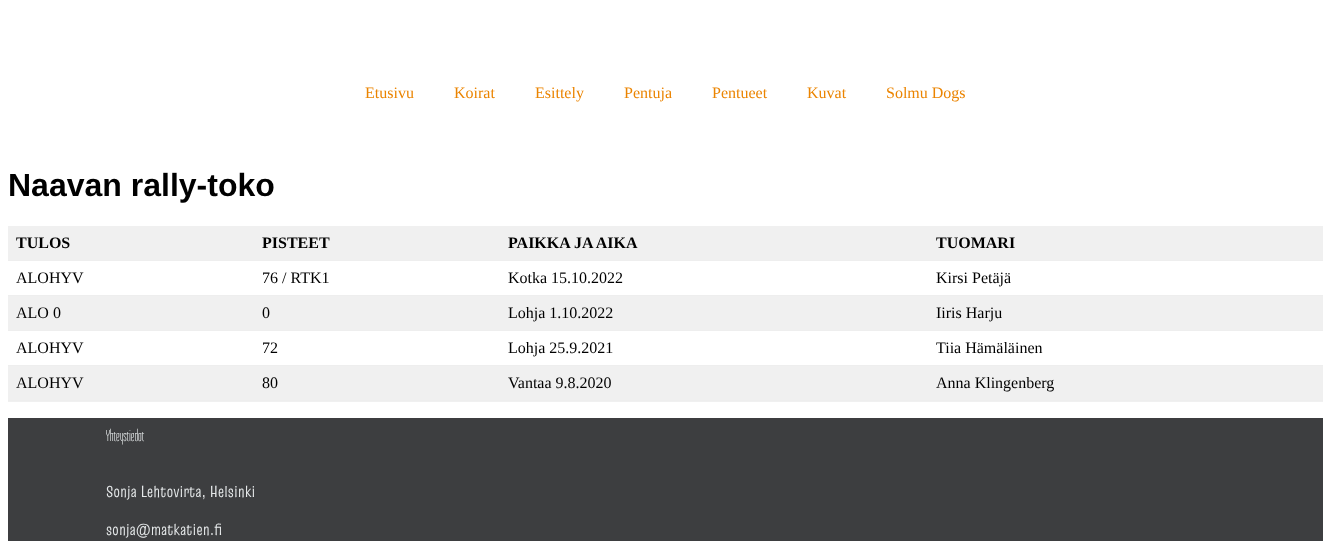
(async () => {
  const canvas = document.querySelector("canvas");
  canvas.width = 1331;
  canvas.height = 541;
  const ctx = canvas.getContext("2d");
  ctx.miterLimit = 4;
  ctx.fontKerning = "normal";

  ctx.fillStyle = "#ffffff";
  ctx.fillRect(0, 0, 1331, 541);
  for (const [x, y, w, h, color] of [
    [8, 401, 1315, 1, "#f0f0f0"],
    [8, 226, 1315, 34, "#f0f0f0"],
    [8, 260, 1315, 1, "#eeeeee"],
    [8, 295, 1315, 1, "#eeeeee"],
    [8, 296, 1315, 34, "#f0f0f0"],
    [8, 330, 1315, 1, "#eeeeee"],
    [8, 365, 1315, 1, "#eeeeee"],
    [8, 366, 1315, 34, "#f0f0f0"],
    [8, 400, 1315, 1, "#eeeeee"],
    [8, 418, 1315, 123, "#3d3e40"],
  ]) {
    ctx.fillStyle = color;
    ctx.fillRect(x, y, w, h);
  }
  ctx.font = "16px Liberation Serif";
  ctx.fillStyle = "#eb8400";
  for (const [text, x, y] of [
    ["Etusivu", 365, 98],
    ["Koirat", 454, 98],
    ["Esittely", 535, 98],
    ["Pentuja", 624, 98],
    ["Pentueet", 712, 98],
    ["Kuvat", 807, 98],
    ["Solmu Dogs", 886, 98],
  ]) {
    ctx.fillText(text, x, y);
  }
  ctx.font = "bold 32px Liberation Sans";
  ctx.fillStyle = "#000000";
  ctx.fillText("Naavan rally-toko", 8, 196);
  ctx.font = "bold 16px Liberation Serif";
  for (const [text, x, y] of [
    ["TULOS", 16, 248],
    ["PISTEET", 262, 248],
    ["PAIKKA JA AIKA", 508, 248],
    ["TUOMARI", 936, 248],
  ]) {
    ctx.fillText(text, x, y);
  }
  ctx.font = "16px Liberation Serif";
  for (const [text, x, y] of [
    ["ALOHYV", 16, 283],
    ["76 / RTK1", 262, 283],
    ["Kotka 15.10.2022", 508, 283],
    ["Kirsi Petäjä", 936, 283],
    ["ALO 0", 16, 318],
    ["0", 262, 318],
    ["Lohja 1.10.2022", 508, 318],
    ["Iiris Harju", 936, 318],
    ["ALOHYV", 16, 353],
    ["72", 262, 353],
    ["Lohja 25.9.2021", 508, 353],
    ["Tiia Hämäläinen", 936, 353],
    ["ALOHYV", 16, 388],
    ["80", 262, 388],
    ["Vantaa 9.8.2020", 508, 388],
    ["Anna Klingenberg", 936, 388],
  ]) {
    ctx.fillText(text, x, y);
  }
  ctx.font = "16px Tulpen One";
  ctx.fillStyle = "#e6e9ea";
  ctx.fillText("Yhteystiedot", 106, 441);
  ctx.font = "16px Truculenta";
  ctx.fillText("Sonja Lehtovirta, Helsinki", 106, 497);
  ctx.fillText("sonja@matkatien.fi", 106, 535);
})();
